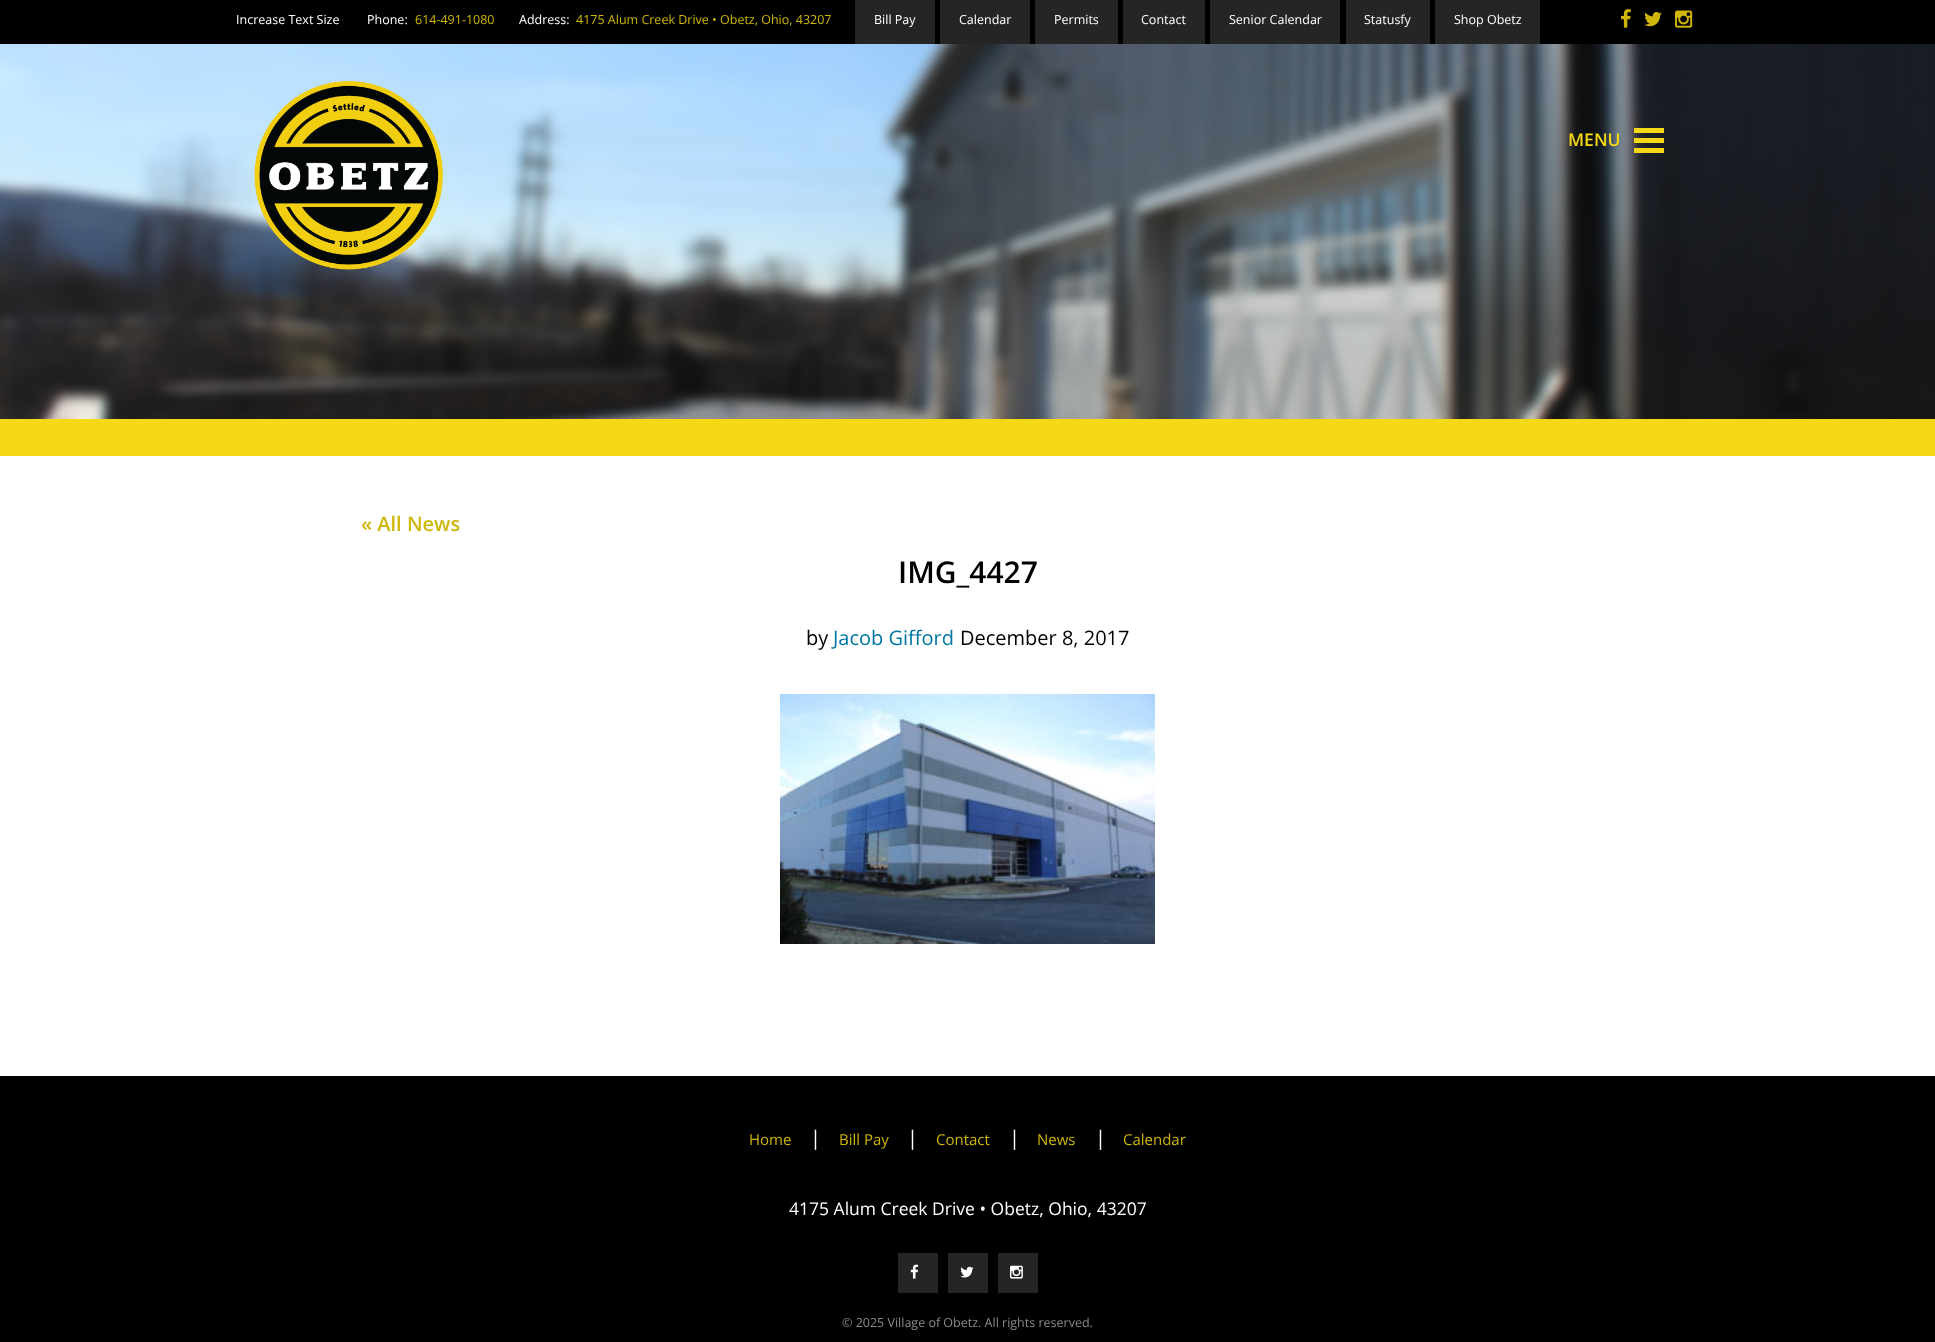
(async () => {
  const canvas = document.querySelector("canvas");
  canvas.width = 1935;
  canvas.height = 1342;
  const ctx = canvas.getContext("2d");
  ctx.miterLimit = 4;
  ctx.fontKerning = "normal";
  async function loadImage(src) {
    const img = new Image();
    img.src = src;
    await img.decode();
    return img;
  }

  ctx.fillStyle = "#ffffff";
  ctx.fillRect(0, 0, 1935, 1342);
  for (const [x, y, w, h, color] of [
    [0, 0, 1935, 44, "#000000"],
    [855, 0, 80, 44, "#252525"],
    [940, 0, 90, 44, "#252525"],
    [1035, 0, 83, 44, "#252525"],
    [1123, 0, 82, 44, "#252525"],
    [1210, 0, 130, 44, "#252525"],
    [1346, 0, 84, 44, "#252525"],
    [1435, 0, 105, 44, "#252525"],
  ]) {
    ctx.fillStyle = color;
    ctx.fillRect(x, y, w, h);
  }
  ctx.drawImage(await loadImage("img/1.png"), 1621, 9, 10, 19);
  ctx.drawImage(await loadImage("img/2.png"), 1644, 12, 18, 15);
  ctx.drawImage(await loadImage("img/3.png"), 1675, 10, 18, 18);
  ctx.drawImage(await loadImage("img/5.png"), 0, 44, 1935, 375);
  ctx.drawImage(await loadImage("img/4.png"), 254, 81, 189, 189);
  for (const [x, y, w, h, color] of [
    [1634, 128, 30, 5, "#f5d916"],
    [1634, 138, 30, 5, "#f5d916"],
    [1634, 148, 30, 5, "#f5d916"],
    [0, 419, 1935, 37, "#f5d916"],
  ]) {
    ctx.fillStyle = color;
    ctx.fillRect(x, y, w, h);
  }
  ctx.drawImage(await loadImage("img/6.png"), 780, 694, 375, 250);
  ctx.fillStyle = "#000000";
  ctx.fillRect(0, 1076, 1935, 266);
  ctx.fillStyle = "#252525";
  ctx.fillRect(898, 1253, 40, 40);
  ctx.drawImage(await loadImage("img/7.png"), 910, 1264, 9, 15);
  ctx.fillRect(948, 1253, 40, 40);
  ctx.drawImage(await loadImage("img/8.png"), 960, 1266, 14, 12);
  ctx.fillRect(998, 1253, 40, 40);
  ctx.drawImage(await loadImage("img/9.png"), 1010, 1265, 13, 14);
  ctx.font = "12.5px Open Sans";
  ctx.fillStyle = "#ffffff";
  ctx.fillText("Increase Text Size", 236, 24);
  ctx.fillText("Phone:", 367, 24);
  ctx.fillStyle = "#cfb609";
  ctx.fillText("614-491-1080", 415, 24);
  ctx.fillStyle = "#ffffff";
  ctx.fillText("Address:", 519, 24);
  ctx.fillStyle = "#cfb609";
  ctx.fillText("4175 Alum Creek Drive • Obetz, Ohio, 43207", 576, 24);
  ctx.fillStyle = "#ffffff";
  for (const [text, x, y] of [
    ["Bill Pay", 874, 24],
    ["Calendar", 959, 24],
    ["Permits", 1054, 24],
    ["Contact", 1141, 24],
    ["Senior Calendar", 1229, 24],
    ["Statusfy", 1364, 24],
    ["Shop Obetz", 1454, 24],
  ]) {
    ctx.fillText(text, x, y);
  }
  ctx.font = "600 17.5px Open Sans";
  ctx.fillStyle = "#f5d916";
  ctx.fillText("MENU", 1568, 146);
  ctx.font = "600 20px Open Sans";
  ctx.fillStyle = "#cfb609";
  ctx.fillText("« All News", 361, 531);
  ctx.font = "600 30px Open Sans";
  ctx.fillStyle = "#000000";
  ctx.fillText("IMG_4427", 898, 583);
  ctx.font = "20px Open Sans";
  ctx.fillText("by", 806, 645);
  ctx.fillStyle = "#0076a3";
  ctx.fillText("Jacob Gifford", 833, 645);
  ctx.fillStyle = "#000000";
  ctx.fillText("December 8, 2017", 960, 645);
  ctx.font = "15px Open Sans";
  ctx.fillStyle = "#cfb609";
  ctx.fillText("Home", 749, 1145);
  ctx.font = "20px Open Sans";
  ctx.fillStyle = "#ffffff";
  ctx.fillText("|", 810, 1145);
  ctx.font = "15px Open Sans";
  ctx.fillStyle = "#cfb609";
  ctx.fillText("Bill Pay", 839, 1145);
  ctx.font = "20px Open Sans";
  ctx.fillStyle = "#ffffff";
  ctx.fillText("|", 907, 1145);
  ctx.font = "15px Open Sans";
  ctx.fillStyle = "#cfb609";
  ctx.fillText("Contact", 936, 1145);
  ctx.font = "20px Open Sans";
  ctx.fillStyle = "#ffffff";
  ctx.fillText("|", 1009, 1145);
  ctx.font = "15px Open Sans";
  ctx.fillStyle = "#cfb609";
  ctx.fillText("News", 1037, 1145);
  ctx.font = "20px Open Sans";
  ctx.fillStyle = "#ffffff";
  ctx.fillText("|", 1095, 1145);
  ctx.font = "15px Open Sans";
  ctx.fillStyle = "#cfb609";
  ctx.fillText("Calendar", 1123, 1145);
  ctx.font = "17.5px Open Sans";
  ctx.fillStyle = "#ffffff";
  ctx.fillText("4175 Alum Creek Drive • Obetz, Ohio, 43207", 789, 1215);
  ctx.font = "12.5px Open Sans";
  ctx.fillStyle = "#898989";
  ctx.fillText("© 2025 Village of Obetz. All rights reserved.", 842, 1327);
})();
